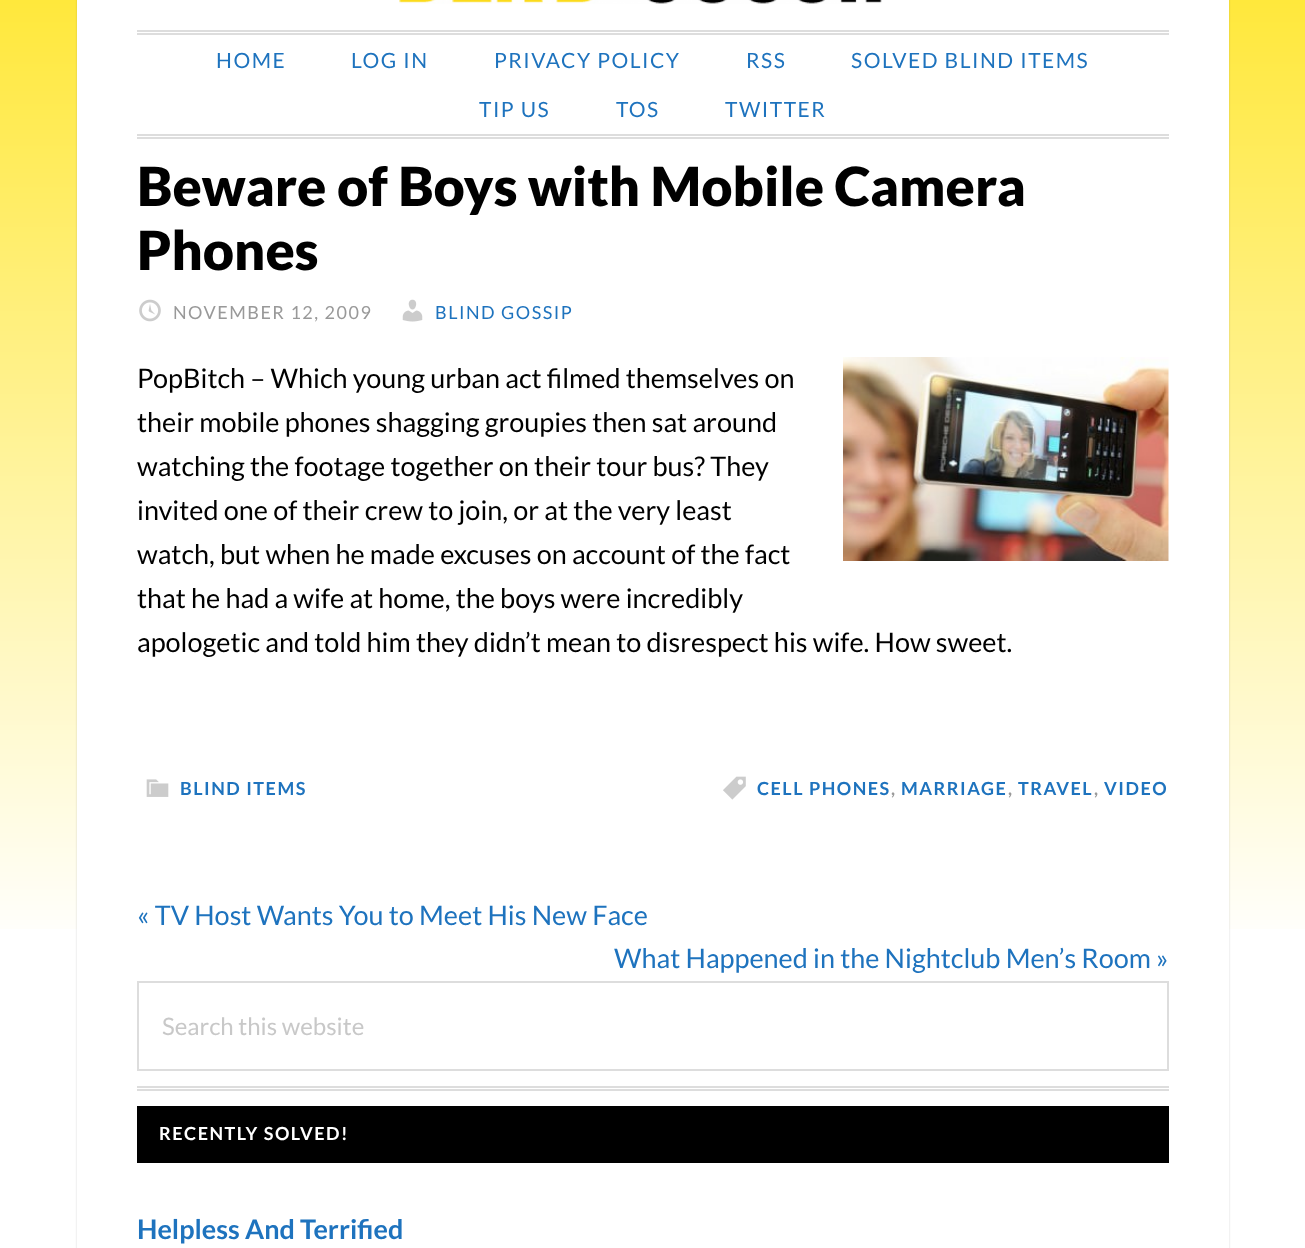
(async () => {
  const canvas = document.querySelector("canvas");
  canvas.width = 1305;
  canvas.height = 1248;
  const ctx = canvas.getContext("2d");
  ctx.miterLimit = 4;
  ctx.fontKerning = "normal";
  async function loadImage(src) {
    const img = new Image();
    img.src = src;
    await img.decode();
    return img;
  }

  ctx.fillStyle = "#ffffff";
  ctx.fillRect(0, 0, 1305, 1248);
  ctx.drawImage(await loadImage("img/1.png"), 0, 0, 1305, 929);
  ctx.fillStyle = "rgba(0, 0, 0, 0.15)";
  ctx.filter = "blur(1px)";
  ctx.beginPath();
  ctx.rect(77, -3, 1152, 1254);
  ctx.fill();
  ctx.filter = "none";
  ctx.fillStyle = "#ffffff";
  ctx.fillRect(77, 0, 1152, 1248);
  ctx.drawImage(await loadImage("img/2.png"), 399, 0, 483, 4);
  for (const [x, y, w, h, color] of [
    [137, 30, 1032, 2, "#dddddd"],
    [137, 33, 1032, 2, "#dddddd"],
    [137, 134, 1032, 2, "#dddddd"],
    [137, 137, 1032, 2, "#dddddd"],
  ]) {
    ctx.fillStyle = color;
    ctx.fillRect(x, y, w, h);
  }
  ctx.drawImage(await loadImage("img/3.png"), 139, 299, 22, 23);
  ctx.drawImage(await loadImage("img/4.png"), 402, 299, 21, 23);
  ctx.drawImage(await loadImage("img/5.png"), 843, 357, 326, 204);
  ctx.drawImage(await loadImage("img/6.png"), 146, 779, 23, 18);
  ctx.drawImage(await loadImage("img/7.png"), 723, 776, 23, 24);
  ctx.strokeStyle = "#dddddd";
  ctx.lineWidth = 2;
  ctx.strokeRect(138, 982, 1030, 88);
  for (const [x, y, w, h, color] of [
    [137, 1086, 1032, 2, "#dddddd"],
    [137, 1089, 1032, 2, "#dddddd"],
    [137, 1106, 1032, 57, "#000000"],
  ]) {
    ctx.fillStyle = color;
    ctx.fillRect(x, y, w, h);
  }
  ctx.letterSpacing = "1.5px";
  ctx.font = "21px Lato";
  ctx.fillStyle = "#1e73be";
  for (const [text, x, y] of [
    ["HOME", 216, 68],
    ["LOG IN", 351, 68],
    ["PRIVACY POLICY", 494, 68],
    ["RSS", 746, 68],
    ["SOLVED BLIND ITEMS", 851, 68],
    ["TIP US", 479, 117],
    ["TOS", 616, 117],
    ["TWITTER", 725, 117],
  ]) {
    ctx.fillText(text, x, y);
  }
  ctx.letterSpacing = "0px";
  ctx.font = "900 54px Lato";
  ctx.fillStyle = "#000000";
  ctx.fillText("Beware of Boys with Mobile Camera", 137, 206);
  ctx.fillText("Phones", 137, 270);
  ctx.letterSpacing = "1.5px";
  ctx.font = "18px Lato";
  ctx.fillStyle = "#999999";
  ctx.fillText("NOVEMBER 12, 2009", 173, 319);
  ctx.fillStyle = "#1e73be";
  ctx.fillText("BLIND GOSSIP", 435, 319);
  ctx.letterSpacing = "0px";
  ctx.font = "27px Lato";
  ctx.fillStyle = "#000000";
  for (const [text, x, y] of [
    ["PopBitch – Which young urban act filmed themselves on", 137, 388],
    ["their mobile phones shagging groupies then sat around", 137, 432],
    ["watching the footage together on their tour bus? They", 137, 476],
    ["invited one of their crew to join, or at the very least", 137, 520],
    ["watch, but when he made excuses on account of the fact", 137, 564],
    ["that he had a wife at home, the boys were incredibly", 137, 608],
    ["apologetic and told him they didn’t mean to disrespect his wife. How sweet.", 137, 652],
  ]) {
    ctx.fillText(text, x, y);
  }
  ctx.letterSpacing = "1.5px";
  ctx.font = "bold 18px Lato";
  ctx.fillStyle = "#1e73be";
  ctx.fillText("BLIND ITEMS", 180, 795);
  ctx.fillText("CELL PHONES", 757, 795);
  ctx.fillStyle = "#999999";
  ctx.fillText(",", 891, 795);
  ctx.fillStyle = "#1e73be";
  ctx.fillText("MARRIAGE", 901, 795);
  ctx.fillStyle = "#999999";
  ctx.fillText(",", 1008, 795);
  ctx.fillStyle = "#1e73be";
  ctx.fillText("TRAVEL", 1018, 795);
  ctx.fillStyle = "#999999";
  ctx.fillText(",", 1094, 795);
  ctx.fillStyle = "#1e73be";
  ctx.fillText("VIDEO", 1104, 795);
  ctx.letterSpacing = "0px";
  ctx.font = "27px Lato";
  ctx.fillText("« TV Host Wants You to Meet His New Face", 137, 925);
  ctx.fillText("What Happened in the Nightclub Men’s Room »", 614, 968);
  ctx.font = "24px Lato";
  ctx.fillStyle = "#c8c8c8";
  ctx.fillText("Search this website", 162, 1035);
  ctx.letterSpacing = "1.5px";
  ctx.font = "bold 18px Lato";
  ctx.fillStyle = "#ffffff";
  ctx.fillText("RECENTLY SOLVED!", 159, 1140);
  ctx.letterSpacing = "0px";
  ctx.font = "bold 27px Lato";
  ctx.fillStyle = "#1e73be";
  ctx.fillText("Helpless And Terrified", 137, 1239);
})();
